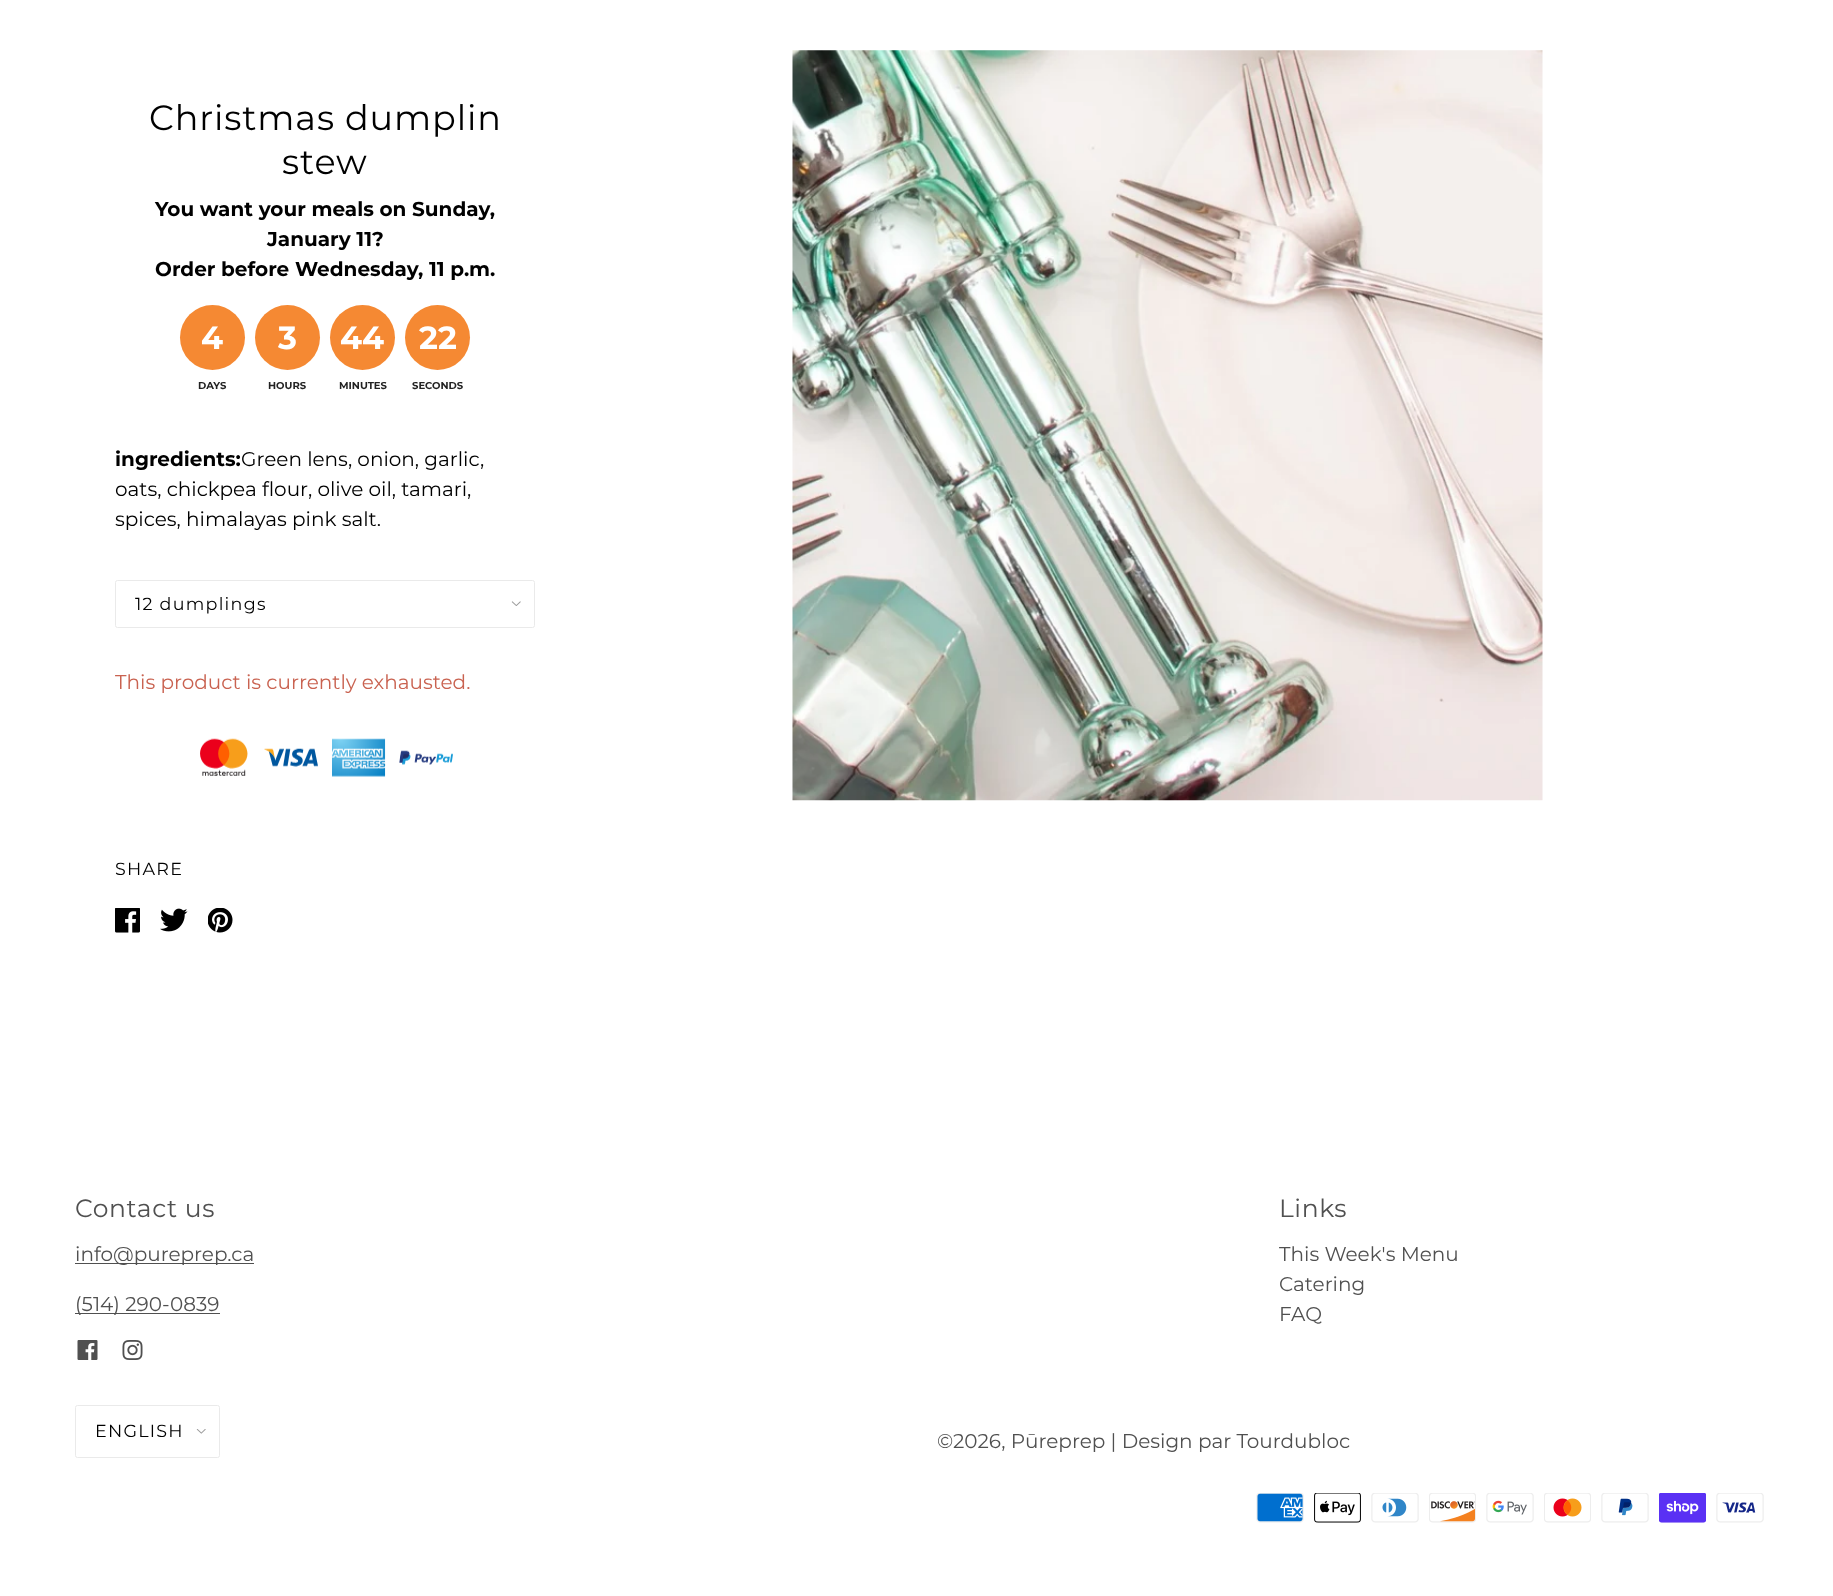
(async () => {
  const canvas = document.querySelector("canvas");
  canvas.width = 1833;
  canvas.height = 1596;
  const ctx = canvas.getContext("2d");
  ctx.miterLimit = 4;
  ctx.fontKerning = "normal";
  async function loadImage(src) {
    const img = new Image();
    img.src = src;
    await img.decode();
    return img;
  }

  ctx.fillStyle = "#ffffff";
  ctx.fillRect(0, 0, 1833, 1596);
  ctx.fillStyle = "#f58933";
  ctx.beginPath();
  ctx.arc(212.5, 337.5, 32.5, 0, Math.PI * 2);
  ctx.fill();
  ctx.beginPath();
  ctx.arc(287.5, 337.5, 32.5, 0, Math.PI * 2);
  ctx.fill();
  ctx.beginPath();
  ctx.arc(362.5, 337.5, 32.5, 0, Math.PI * 2);
  ctx.fill();
  ctx.beginPath();
  ctx.arc(437.5, 337.5, 32.5, 0, Math.PI * 2);
  ctx.fill();
  ctx.drawImage(await loadImage("img/1.png"), 511, 601, 10, 5);
  ctx.beginPath();
  ctx.roundRect(115.5, 580.5, 419, 47, 2);
  ctx.strokeStyle = "#eaeaea";
  ctx.stroke();
  ctx.drawImage(await loadImage("img/2.png"), 200, 738, 253, 39);
  ctx.drawImage(await loadImage("img/3.png"), 115, 908, 25, 25);
  ctx.drawImage(await loadImage("img/4.png"), 160, 908, 28, 24);
  ctx.drawImage(await loadImage("img/5.png"), 208, 908, 25, 25);
  ctx.drawImage(await loadImage("img/6.png"), 792, 50, 751, 751);
  ctx.fillStyle = "#505050";
  ctx.fillRect(75, 1263, 179, 1);
  ctx.fillRect(75, 1313, 145, 1);
  ctx.drawImage(await loadImage("img/7.png"), 77, 1340, 21, 20);
  ctx.drawImage(await loadImage("img/8.png"), 122, 1340, 21, 20);
  ctx.drawImage(await loadImage("img/9.png"), 196, 1429, 10, 5);
  ctx.beginPath();
  ctx.roundRect(75.5, 1405.5, 144, 52, 2);
  ctx.stroke();
  ctx.drawImage(await loadImage("img/10.png"), 1256, 1493, 48, 30);
  ctx.drawImage(await loadImage("img/11.png"), 1314, 1493, 47, 30);
  ctx.drawImage(await loadImage("img/12.png"), 1371, 1493, 48, 30);
  ctx.drawImage(await loadImage("img/13.png"), 1429, 1493, 47, 30);
  ctx.drawImage(await loadImage("img/14.png"), 1486, 1493, 48, 30);
  ctx.drawImage(await loadImage("img/15.png"), 1544, 1493, 47, 30);
  ctx.drawImage(await loadImage("img/16.png"), 1601, 1493, 48, 30);
  ctx.drawImage(await loadImage("img/17.png"), 1659, 1493, 47, 30);
  ctx.drawImage(await loadImage("img/18.png"), 1716, 1493, 48, 30);
  ctx.letterSpacing = "0.9px";
  ctx.font = "35px Montserrat";
  ctx.fillStyle = "#000000";
  ctx.fillText("Christmas dumplin", 149, 130);
  ctx.fillText("stew", 282, 174);
  ctx.letterSpacing = "0px";
  ctx.font = "bold 20px Montserrat";
  for (const [text, x, y] of [
    ["You want your meals on Sunday,", 155, 216],
    ["January 11?", 267, 246],
    ["Order before Wednesday, 11 p.m.", 155, 276],
  ]) {
    ctx.fillText(text, x, y);
  }
  ctx.font = "bold 32px Montserrat";
  ctx.fillStyle = "#ffffff";
  ctx.fillText("4", 201, 349);
  ctx.font = "bold 10px Montserrat";
  ctx.fillStyle = "#222222";
  ctx.fillText("DAYS", 198, 389);
  ctx.font = "bold 32px Montserrat";
  ctx.fillStyle = "#ffffff";
  ctx.fillText("3", 278, 349);
  ctx.font = "bold 10px Montserrat";
  ctx.fillStyle = "#222222";
  ctx.fillText("HOURS", 268, 389);
  ctx.font = "bold 32px Montserrat";
  ctx.fillStyle = "#ffffff";
  ctx.fillText("44", 340, 349);
  ctx.font = "bold 10px Montserrat";
  ctx.fillStyle = "#222222";
  ctx.fillText("MINUTES", 339, 389);
  ctx.font = "bold 32px Montserrat";
  ctx.fillStyle = "#ffffff";
  ctx.fillText("22", 419, 349);
  ctx.font = "bold 10px Montserrat";
  ctx.fillStyle = "#222222";
  ctx.fillText("SECONDS", 412, 389);
  ctx.font = "bold 20px Montserrat";
  ctx.fillStyle = "#000000";
  ctx.fillText("ingredients:", 115, 466);
  ctx.font = "20px Montserrat";
  for (const [text, x, y] of [
    ["Green lens, onion, garlic,", 241, 466],
    ["oats, chickpea flour, olive oil, tamari,", 115, 496],
    ["spices, himalayas pink salt.", 115, 526],
  ]) {
    ctx.fillText(text, x, y);
  }
  ctx.letterSpacing = "1.25px";
  ctx.font = "17.5px Montserrat";
  ctx.fillText("12 dumplings", 135, 610);
  ctx.letterSpacing = "0px";
  ctx.font = "20px Montserrat";
  ctx.fillStyle = "#c96250";
  ctx.fillText("This product is currently exhausted.", 115, 689);
  ctx.letterSpacing = "1.25px";
  ctx.font = "17.5px Montserrat";
  ctx.fillStyle = "#000000";
  ctx.fillText("SHARE", 115, 875);
  ctx.letterSpacing = "0.6px";
  ctx.font = "25px Montserrat";
  ctx.fillStyle = "#505050";
  ctx.fillText("Contact us", 75, 1217);
  ctx.letterSpacing = "0px";
  ctx.font = "20px Montserrat";
  ctx.fillText("info@pureprep.ca", 75, 1261);
  ctx.fillText("(514) 290-0839", 75, 1311);
  ctx.letterSpacing = "0.6px";
  ctx.font = "25px Montserrat";
  ctx.fillText("Links", 1279, 1217);
  ctx.letterSpacing = "0px";
  ctx.font = "20px Montserrat";
  for (const [text, x, y] of [
    ["This Week's Menu", 1279, 1261],
    ["Catering", 1279, 1291],
    ["FAQ", 1279, 1321],
  ]) {
    ctx.fillText(text, x, y);
  }
  ctx.letterSpacing = "1.25px";
  ctx.font = "17.5px Montserrat";
  ctx.fillStyle = "#000000";
  ctx.fillText("ENGLISH", 95, 1437);
  ctx.letterSpacing = "0px";
  ctx.font = "20px Montserrat";
  ctx.fillStyle = "#505050";
  ctx.fillText("©2026, Pūreprep | Design par Tourdubloc", 937, 1448);
})();
